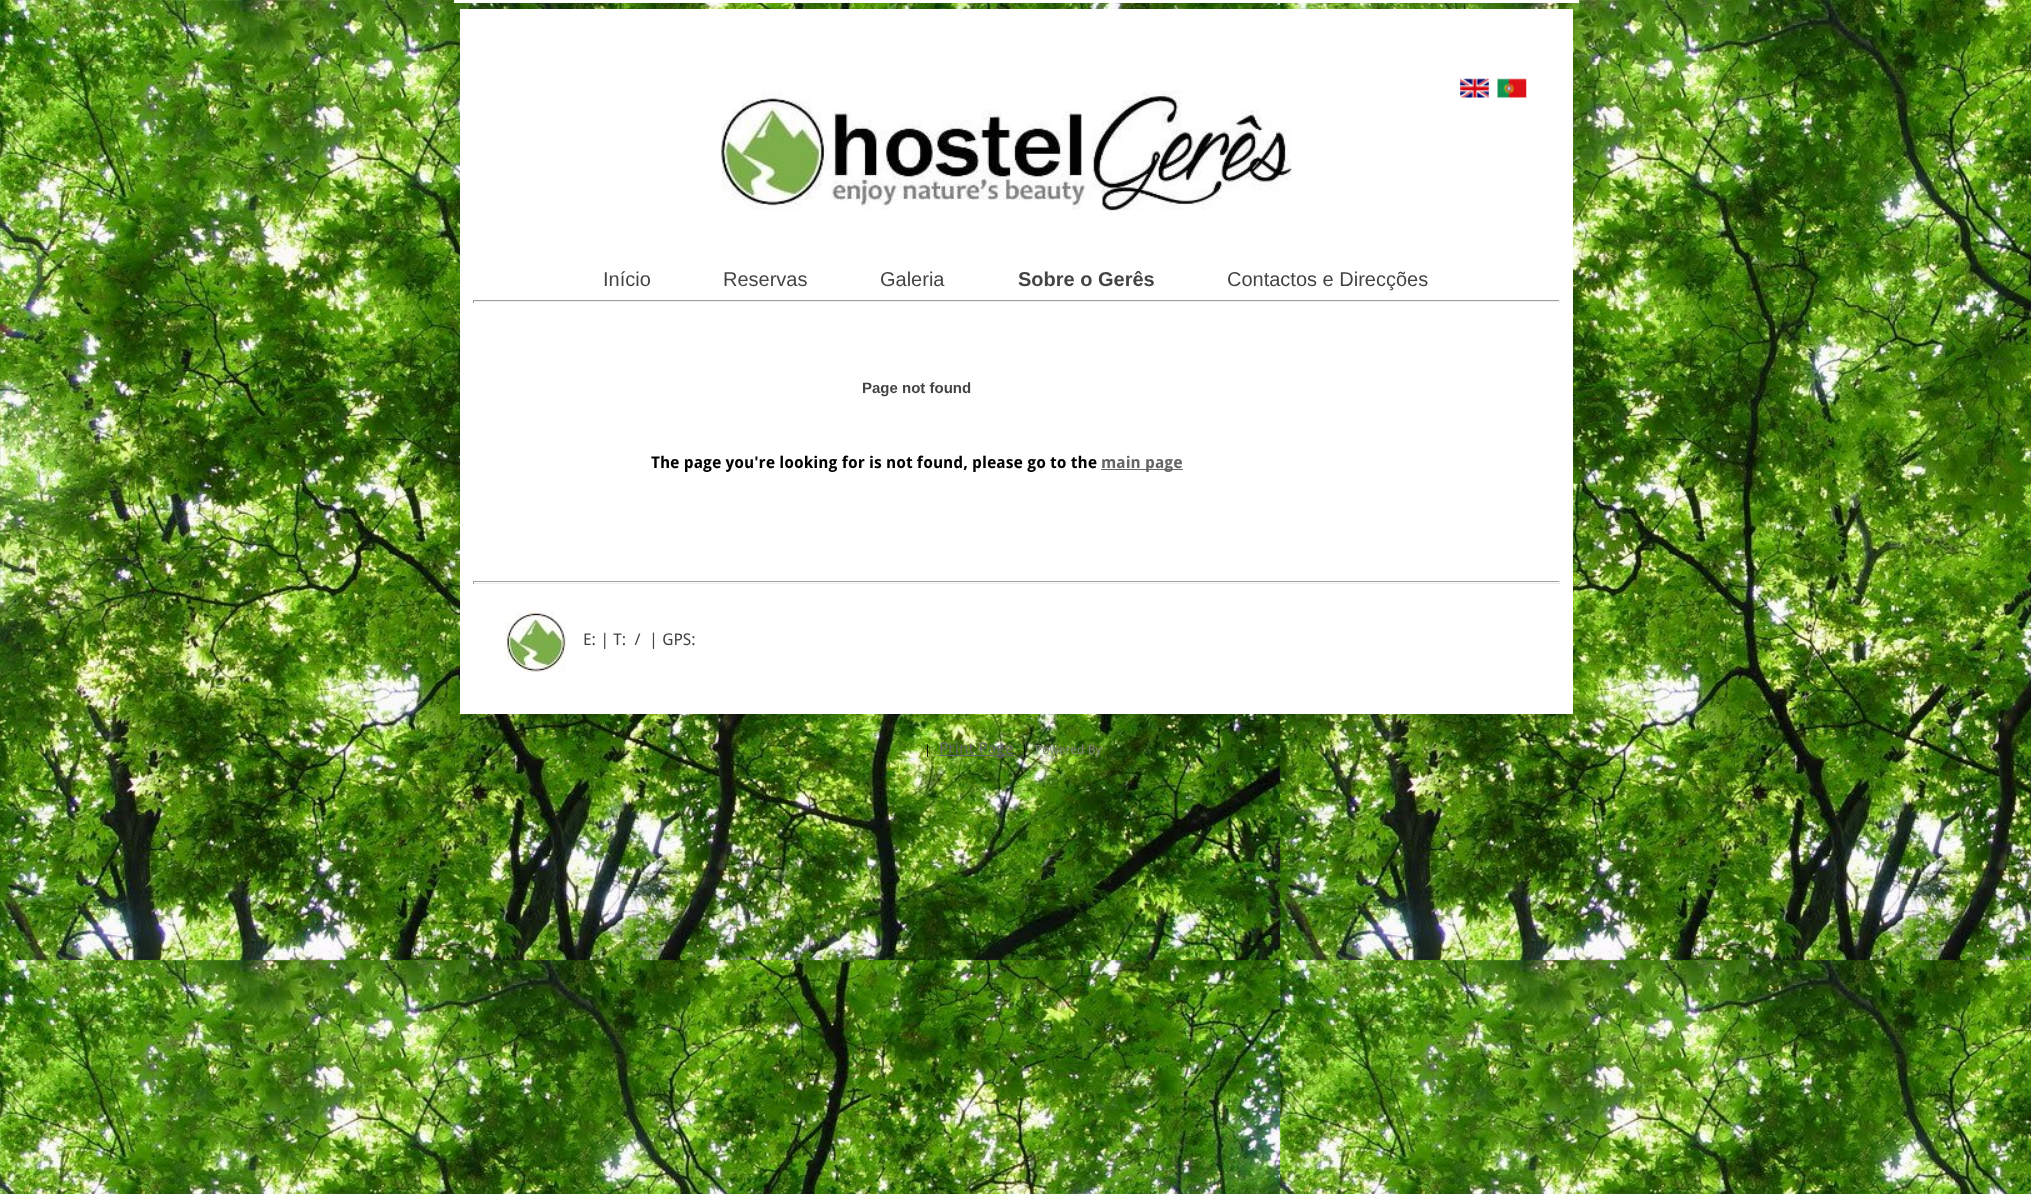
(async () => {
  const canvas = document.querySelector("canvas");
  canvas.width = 2031;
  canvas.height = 1194;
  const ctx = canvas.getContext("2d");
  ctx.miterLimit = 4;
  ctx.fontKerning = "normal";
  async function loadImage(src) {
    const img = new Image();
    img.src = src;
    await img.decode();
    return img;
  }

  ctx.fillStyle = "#ffffff";
  ctx.fillRect(0, 0, 2031, 1194);
  ctx.drawImage(await loadImage("img/1.png"), 0, 0, 2031, 1194);
  ctx.fillRect(454, 0, 1125, 3);
  ctx.fillRect(460, 9, 1113, 705);
  ctx.drawImage(await loadImage("img/2.png"), 1460, 78, 29, 20);
  ctx.drawImage(await loadImage("img/3.png"), 1497, 78, 30, 20);
  ctx.drawImage(await loadImage("img/4.png"), 721, 90, 571, 121);
  for (const [x, y, w, h, color] of [
    [473, 300, 1087, 1, "#9f9f9f"],
    [1559, 300, 1, 3, "#eeeeee"],
    [473, 301, 1087, 1, "#eeeeee"],
    [473, 300, 1, 3, "#9f9f9f"],
    [1101, 469, 82, 1, "#666666"],
    [473, 581, 1087, 1, "#9f9f9f"],
    [1559, 581, 1, 3, "#eeeeee"],
    [473, 583, 1087, 1, "#eeeeee"],
    [473, 581, 1, 3, "#9f9f9f"],
  ]) {
    ctx.fillStyle = color;
    ctx.fillRect(x, y, w, h);
  }
  ctx.drawImage(await loadImage("img/5.png"), 505, 611, 62, 61);
  ctx.fillStyle = "#666666";
  ctx.fillRect(939, 755, 75, 1);
  ctx.font = "20px Liberation Sans";
  ctx.fillStyle = "#444444";
  for (const [text, x, y] of [
    ["Início", 603, 286],
    ["Reservas", 723, 286],
    ["Galeria", 880, 286],
  ]) {
    ctx.fillText(text, x, y);
  }
  ctx.font = "bold 20px Liberation Sans";
  ctx.fillText("Sobre o Gerês", 1018, 286);
  ctx.font = "20px Liberation Sans";
  ctx.fillText("Contactos e Direcções", 1227, 286);
  ctx.font = "bold 15px Liberation Sans";
  ctx.fillText("Page not found", 862, 393);
  ctx.font = "bold 16.25px Droid Sans";
  ctx.fillStyle = "#000000";
  ctx.fillText("The page you're looking for is not found, please go to the", 651, 468);
  ctx.fillStyle = "#666666";
  ctx.fillText("main page", 1101, 468);
  ctx.font = "16.25px Droid Sans";
  ctx.fillStyle = "#444444";
  ctx.fillText("E: | T:  /", 583, 645);
  ctx.fillText("| GPS:", 649, 645);
  ctx.font = "12.5px Droid Sans";
  ctx.fillStyle = "#000000";
  ctx.fillText("|", 924, 754);
  ctx.font = "16.25px Droid Sans";
  ctx.fillStyle = "#666666";
  ctx.fillText("Print Page", 939, 754);
  ctx.font = "12.5px Droid Sans";
  ctx.fillStyle = "#000000";
  ctx.fillText("|", 1021, 754);
  ctx.fillStyle = "#808080";
  ctx.fillText("Powered By", 1035, 754);
})();
